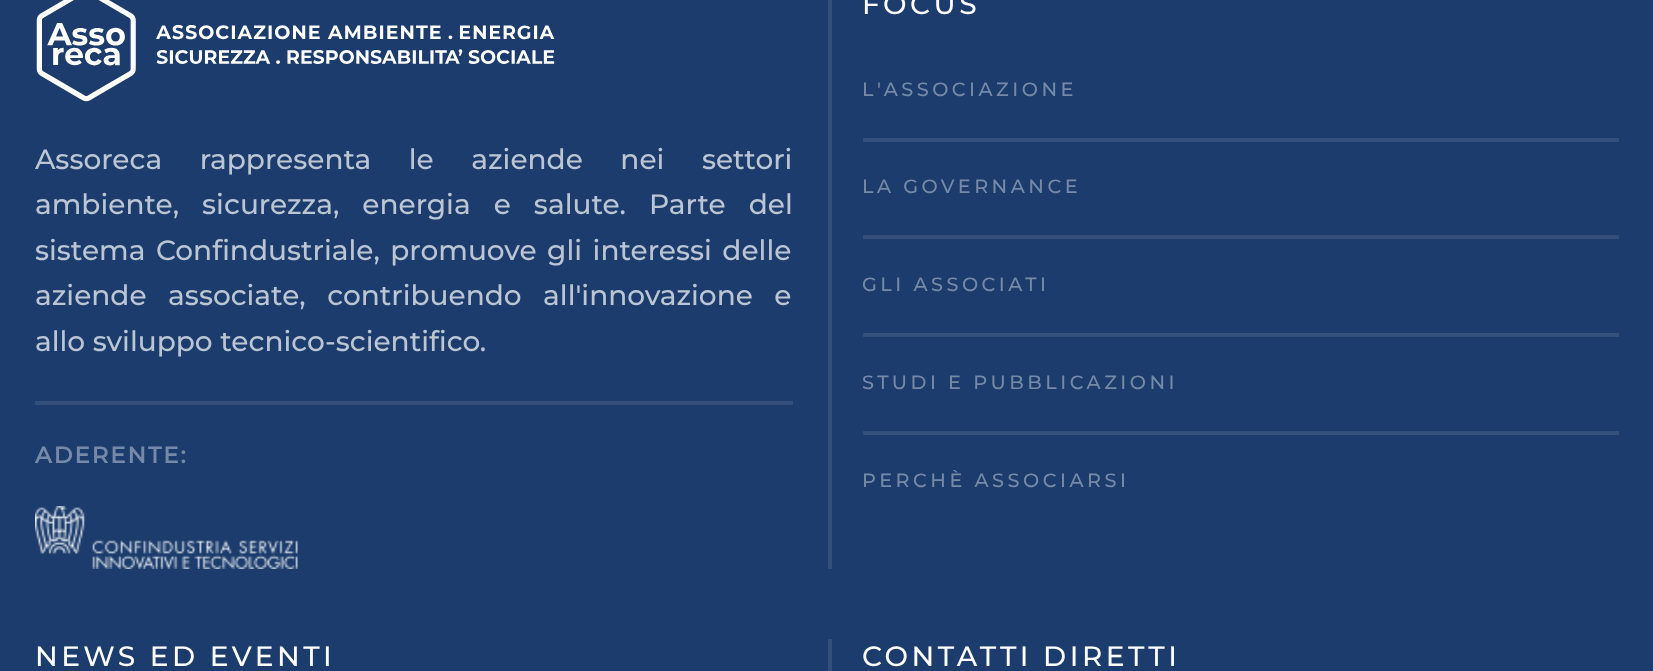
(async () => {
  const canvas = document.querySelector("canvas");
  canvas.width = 1653;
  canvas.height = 671;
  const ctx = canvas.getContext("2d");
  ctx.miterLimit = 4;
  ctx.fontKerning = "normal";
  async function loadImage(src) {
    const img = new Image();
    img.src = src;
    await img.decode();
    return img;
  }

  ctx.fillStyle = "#1b3c6c";
  ctx.fillRect(0, 0, 1653, 671);
  ctx.drawImage(await loadImage("img/1.png"), 36, 0, 519, 102);
  ctx.fillStyle = "#32507b";
  ctx.fillRect(35, 401, 758, 4);
  ctx.drawImage(await loadImage("img/2.png"), 35, 506, 263, 63);
  for (const [x, y, w, h, color] of [
    [828, 0, 4, 569, "#32507b"],
    [863, 138, 756, 4, "#32507b"],
    [863, 235, 756, 4, "#32507b"],
    [863, 333, 756, 4, "#32507b"],
    [863, 431, 756, 4, "#32507b"],
    [828, 639, 4, 32, "#32507b"],
  ]) {
    ctx.fillStyle = color;
    ctx.fillRect(x, y, w, h);
  }
  ctx.wordSpacing = "30px";
  ctx.font = "100 28px Montserrat";
  ctx.fillStyle = "#bbc5d3";
  ctx.fillText("Assoreca rappresenta le aziende nei settori", 35, 169);
  ctx.wordSpacing = "15.5px";
  ctx.fillText("ambiente, sicurezza, energia e salute. Parte del", 35, 214);
  ctx.wordSpacing = "3px";
  ctx.fillText("sistema Confindustriale, promuove gli interessi delle", 35, 260);
  ctx.wordSpacing = "14px";
  ctx.fillText("aziende associate, contribuendo all'innovazione e", 35, 305);
  ctx.wordSpacing = "0px";
  ctx.fillText("allo sviluppo tecnico-scientifico.", 35, 351);
  ctx.letterSpacing = "2px";
  ctx.font = "bold 22.75px Montserrat";
  ctx.fillStyle = "#768aa7";
  ctx.fillText("ADERENTE:", 35, 463);
  ctx.letterSpacing = "3.5px";
  ctx.font = "100 28px Montserrat";
  ctx.fillStyle = "#ffffff";
  ctx.fillText("FOCUS", 862, 14);
  ctx.font = "100 19.25px Montserrat";
  ctx.fillStyle = "#768aa7";
  for (const [text, x, y] of [
    ["L'ASSOCIAZIONE", 862, 96],
    ["LA GOVERNANCE", 862, 193],
    ["GLI ASSOCIATI", 862, 291],
    ["STUDI E PUBBLICAZIONI", 862, 389],
    ["PERCHÈ ASSOCIARSI", 862, 487],
  ]) {
    ctx.fillText(text, x, y);
  }
  ctx.font = "100 28px Montserrat";
  ctx.fillStyle = "#ffffff";
  ctx.fillText("NEWS ED EVENTI", 35, 666);
  ctx.fillText("CONTATTI DIRETTI", 862, 666);
})();
